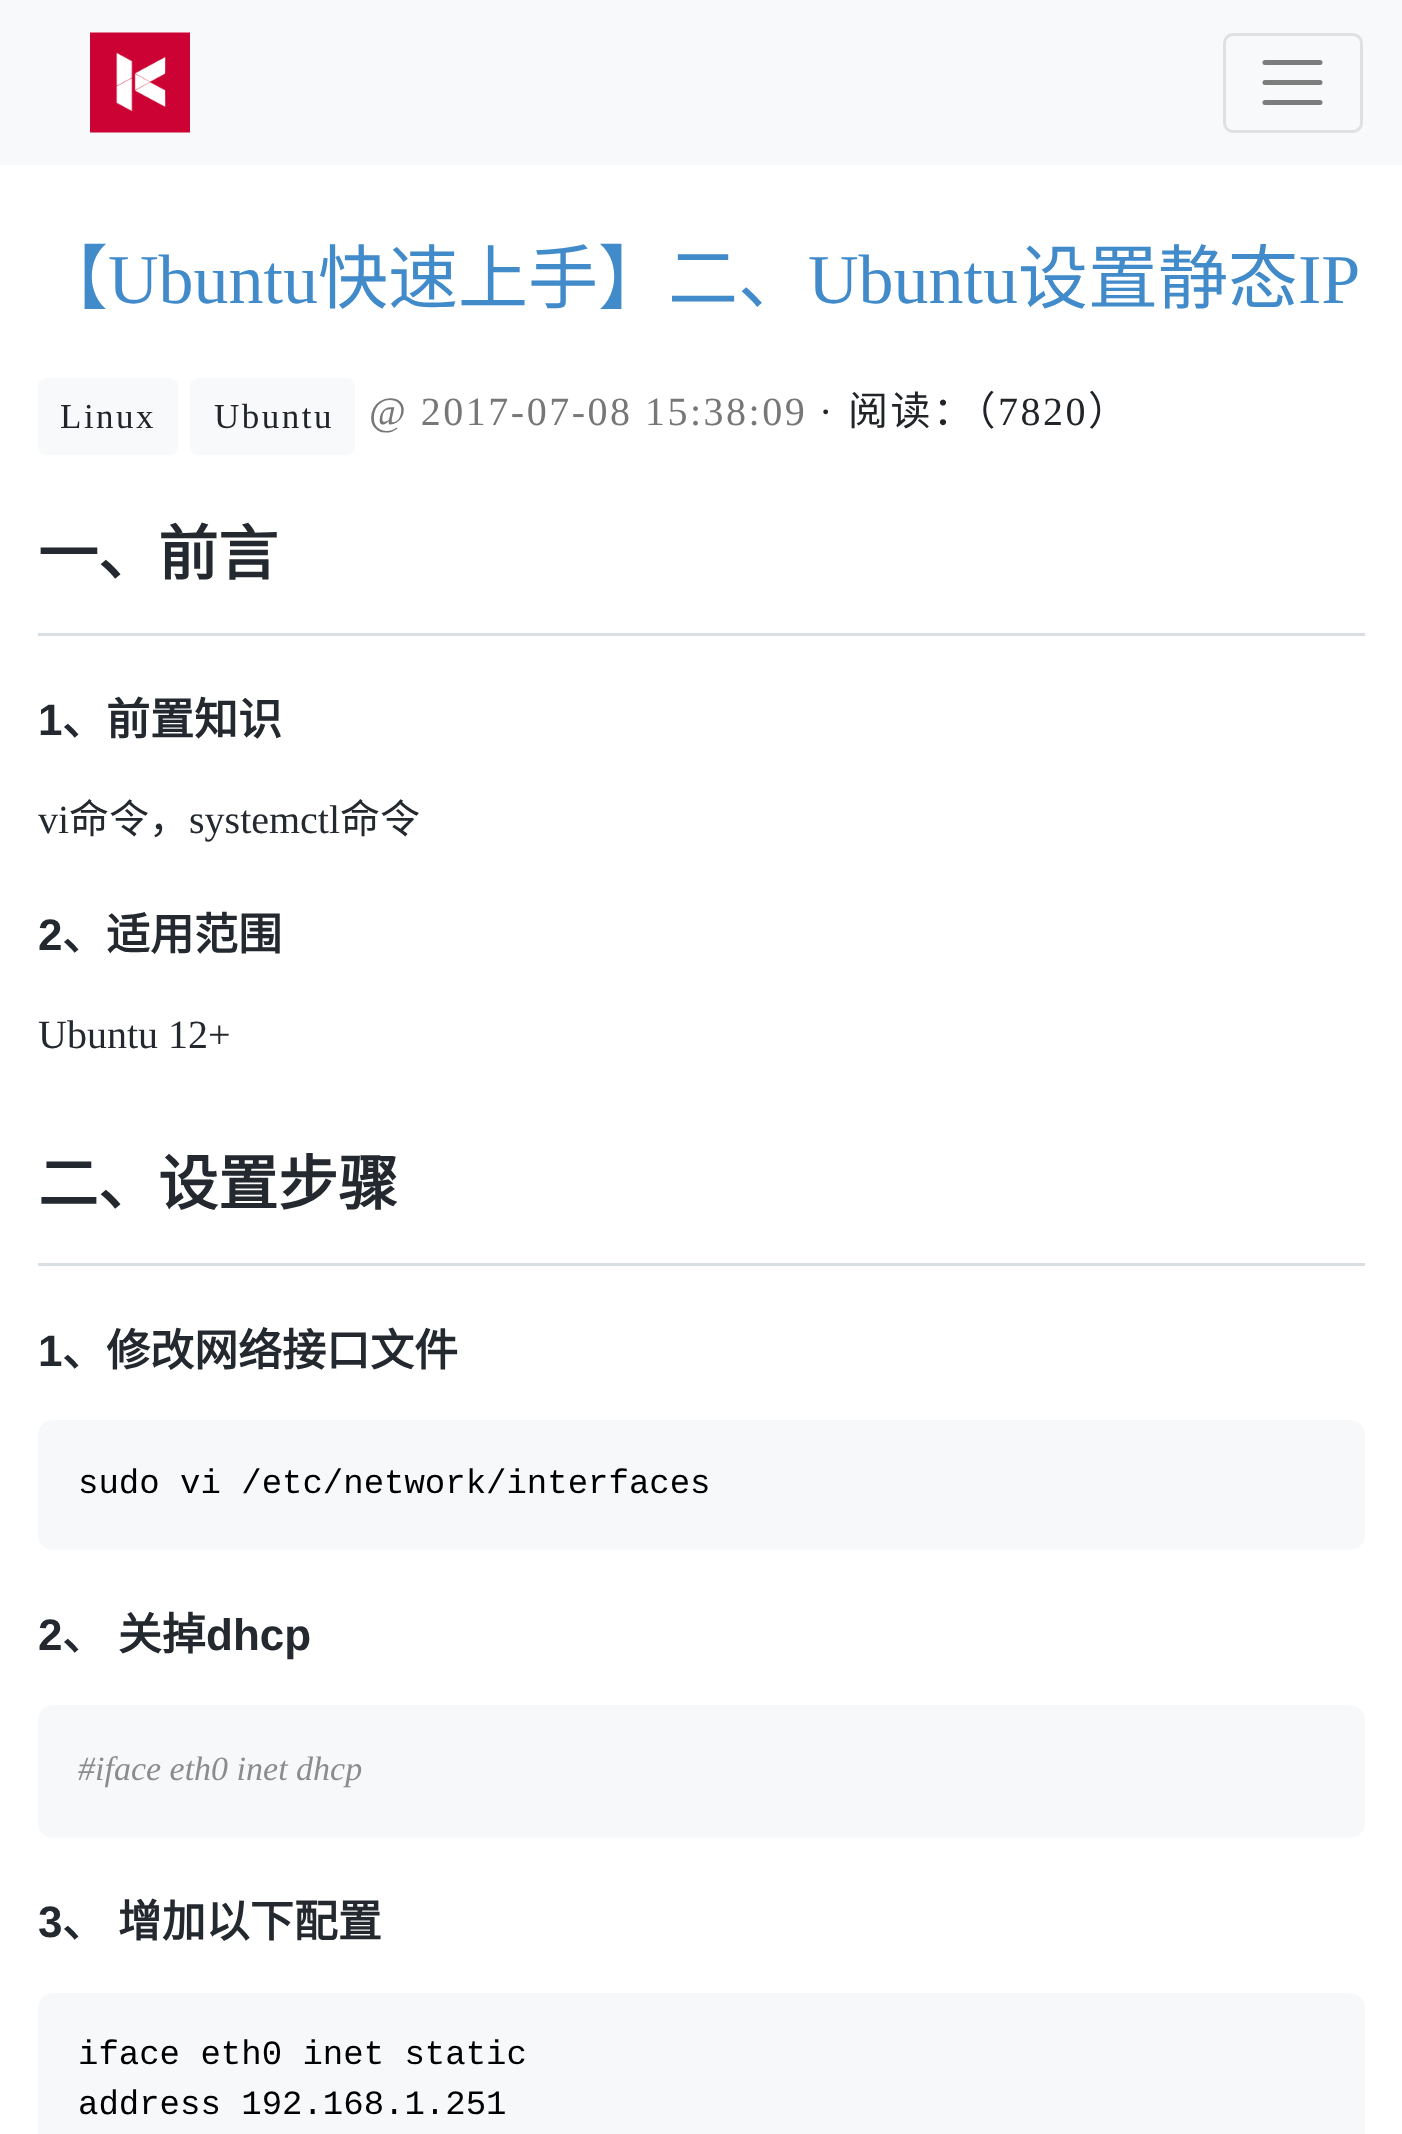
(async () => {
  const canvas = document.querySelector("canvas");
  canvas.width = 1402;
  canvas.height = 2134;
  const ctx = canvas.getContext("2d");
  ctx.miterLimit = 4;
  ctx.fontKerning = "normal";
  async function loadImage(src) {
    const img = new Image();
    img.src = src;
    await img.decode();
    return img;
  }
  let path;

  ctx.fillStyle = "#ffffff";
  ctx.fillRect(0, 0, 1402, 2134);
  ctx.fillStyle = "#f8f9fa";
  ctx.fillRect(0, 0, 1402, 165);
  ctx.drawImage(await loadImage("img/1.png"), 90, 32, 100, 101);
  ctx.beginPath();
  ctx.roundRect(1224.5, 34.5, 137, 97, 8.5);
  ctx.strokeStyle = "#dfe0e1";
  ctx.lineWidth = 3;
  ctx.stroke();
  path = new Path2D("M1265 62.5H1320M1265 82.5H1320M1265 102.5H1320");
  ctx.strokeStyle = "#7c7d7d";
  ctx.lineWidth = 5;
  ctx.lineCap = "round";
  ctx.stroke(path);
  ctx.beginPath();
  ctx.roundRect(38, 378, 140, 77, 8);
  ctx.fill();
  ctx.beginPath();
  ctx.roundRect(190, 378, 165, 77, 8);
  ctx.fill();
  ctx.fillStyle = "#d8dee4";
  ctx.fillRect(38, 633, 1327, 3);
  ctx.fillRect(38, 1263, 1327, 3);
  ctx.fillStyle = "#f6f8fa";
  ctx.beginPath();
  ctx.roundRect(38, 1420, 1327, 130, 15);
  ctx.fill();
  ctx.beginPath();
  ctx.roundRect(38, 1705, 1327, 133, 15);
  ctx.fill();
  ctx.beginPath();
  ctx.roundRect(38, 1993, 1327, 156, 15);
  ctx.fill();
  ctx.font = "70px Noto Sans CJK SC";
  ctx.fillStyle = "#428bca";
  ctx.fillText("【", 38, 303);
  ctx.font = "70px Liberation Serif";
  ctx.fillText("Ubuntu", 108, 303);
  ctx.font = "70px Noto Sans CJK SC";
  ctx.fillText("快速上手】二、", 318, 303);
  ctx.font = "70px Liberation Serif";
  ctx.fillText("Ubuntu", 808, 303);
  ctx.font = "70px Noto Sans CJK SC";
  ctx.fillText("设置静态", 1018, 303);
  ctx.font = "70px Liberation Serif";
  ctx.fillText("IP", 1298, 303);
  ctx.letterSpacing = "2.5px";
  ctx.font = "35px Liberation Serif";
  ctx.fillStyle = "#212529";
  ctx.fillText("Linux", 60, 428);
  ctx.fillText("Ubuntu", 214, 428);
  ctx.font = "40px Liberation Serif";
  ctx.fillStyle = "#777777";
  ctx.fillText("@ 2017-07-08 15:38:09", 369, 425);
  ctx.fillStyle = "#212529";
  ctx.fillText("·", 819, 425);
  ctx.font = "40px Noto Sans CJK SC";
  ctx.fillText("阅读：（", 848, 425);
  ctx.font = "40px Liberation Serif";
  ctx.fillText("7820", 998, 425);
  ctx.font = "40px Noto Sans CJK SC";
  ctx.fillText("）", 1088, 425);
  ctx.letterSpacing = "0px";
  ctx.font = "bold 60px Noto Sans CJK SC";
  ctx.fillStyle = "#24292f";
  ctx.fillText("一、前言", 38, 575);
  ctx.font = "bold 44px Liberation Sans";
  ctx.fillText("1", 38, 735);
  ctx.font = "bold 44px Noto Sans CJK SC";
  ctx.fillText("、前置知识", 62, 735);
  ctx.font = "40px Liberation Serif";
  ctx.fillText("vi", 38, 833);
  ctx.font = "40px Noto Sans CJK SC";
  ctx.fillText("命令，", 69, 833);
  ctx.font = "40px Liberation Serif";
  ctx.fillText("systemctl", 189, 833);
  ctx.font = "40px Noto Sans CJK SC";
  ctx.fillText("命令", 340, 833);
  ctx.font = "bold 44px Liberation Sans";
  ctx.fillText("2", 38, 950);
  ctx.font = "bold 44px Noto Sans CJK SC";
  ctx.fillText("、适用范围", 62, 950);
  ctx.font = "40px Liberation Serif";
  ctx.fillText("Ubuntu 12+", 38, 1048);
  ctx.font = "bold 60px Noto Sans CJK SC";
  ctx.fillText("二、设置步骤", 38, 1205);
  ctx.font = "bold 44px Liberation Sans";
  ctx.fillText("1", 38, 1366);
  ctx.font = "bold 44px Noto Sans CJK SC";
  ctx.fillText("、修改网络接口文件", 62, 1366);
  ctx.font = "34px Liberation Mono";
  ctx.fillStyle = "#000000";
  ctx.fillText("sudo vi /etc/network/interfaces", 78, 1493);
  ctx.font = "bold 44px Liberation Sans";
  ctx.fillStyle = "#24292f";
  ctx.fillText("2", 38, 1650);
  ctx.wordSpacing = "2px";
  ctx.font = "bold 44px Noto Sans CJK SC";
  ctx.fillText("、 关掉", 62, 1650);
  ctx.wordSpacing = "0px";
  ctx.font = "bold 44px Liberation Sans";
  ctx.fillText("dhcp", 206, 1650);
  ctx.font = "italic 34px Liberation Serif";
  ctx.fillStyle = "#8c8c8c";
  ctx.fillText("#iface eth0 inet dhcp", 78, 1780);
  ctx.font = "bold 44px Liberation Sans";
  ctx.fillStyle = "#24292f";
  ctx.fillText("3", 38, 1937);
  ctx.wordSpacing = "2px";
  ctx.font = "bold 44px Noto Sans CJK SC";
  ctx.fillText("、 增加以下配置", 62, 1937);
  ctx.wordSpacing = "0px";
  ctx.font = "34px Liberation Mono";
  ctx.fillStyle = "#000000";
  ctx.fillText("iface eth0 inet static", 78, 2064);
  ctx.fillText("address 192.168.1.251", 78, 2114);
})();
